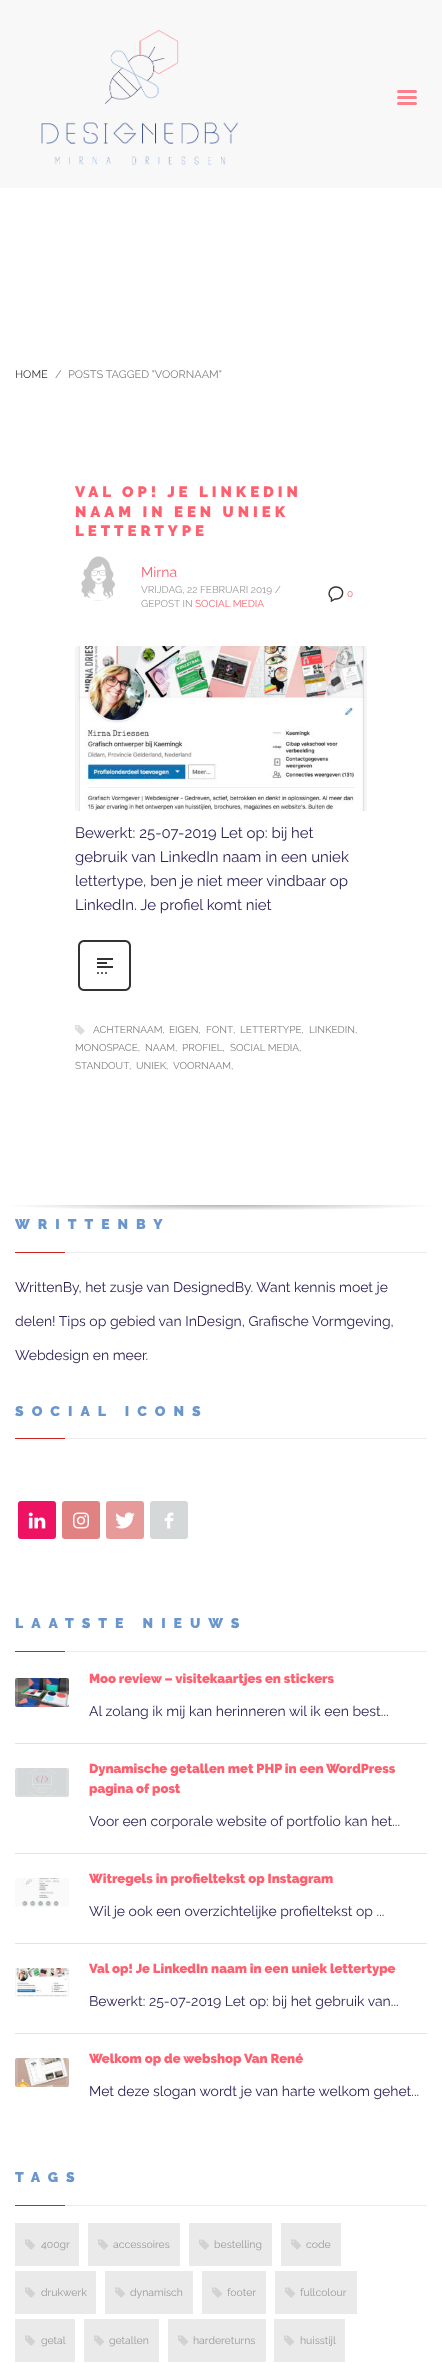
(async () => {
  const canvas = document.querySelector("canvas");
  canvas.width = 442;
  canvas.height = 2364;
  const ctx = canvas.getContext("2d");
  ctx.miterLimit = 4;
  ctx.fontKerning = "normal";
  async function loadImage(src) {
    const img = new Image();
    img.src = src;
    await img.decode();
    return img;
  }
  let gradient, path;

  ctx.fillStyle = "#ffffff";
  ctx.fillRect(0, 0, 442, 2364);
  ctx.fillStyle = "#f8f8f8";
  ctx.fillRect(0, 0, 442, 188);
  ctx.drawImage(await loadImage("img/1.png"), 41, 30, 198, 135);
  ctx.fillStyle = "#fe7e8a";
  ctx.beginPath();
  ctx.roundRect(397, 90, 20, 3, 1.5);
  ctx.fill();
  ctx.beginPath();
  ctx.roundRect(397, 96, 20, 3, 1.5);
  ctx.fill();
  ctx.beginPath();
  ctx.roundRect(397, 102, 20, 3, 1.5);
  ctx.fill();
  ctx.drawImage(await loadImage("img/2.png"), 81, 556, 34, 45);
  path = new Path2D("M336 587C330 587 326.5 594.5 331.5 598V601L335 599C344.5 600 345.5 587 336 587Z");
  ctx.strokeStyle = "#343434";
  ctx.lineWidth = 1.4;
  ctx.stroke(path);
  ctx.drawImage(await loadImage("img/3.png"), 75, 646, 292, 165);
  ctx.drawImage(await loadImage("img/4.png"), 78, 940, 53, 51);
  ctx.drawImage(await loadImage("img/5.png"), 75, 1025, 10, 10);
  gradient = ctx.createRadialGradient(221, 47145.62, 0, 221, 47145.62, 313);
  gradient.addColorStop(0, "#b3b3b3");
  gradient.addColorStop(0.7, "#ffffff");
  ctx.fillStyle = gradient;
  ctx.beginPath();
  ctx.rect(10, 1205, 422, 5);
  ctx.save();
  ctx.clip();
  ctx.scale(1, 8 / 313);
  ctx.fillRect(0, 0, 442, 92492);
  ctx.restore();
  for (const [x, y, w, h, color] of [
    [15, 1252, 50, 1, "#cd2122"],
    [65, 1252, 362, 1, "#ececec"],
    [15, 1438, 50, 1, "#cd2122"],
    [65, 1438, 362, 1, "#ececec"],
  ]) {
    ctx.fillStyle = color;
    ctx.fillRect(x, y, w, h);
  }
  ctx.fillStyle = "#ed1262";
  ctx.beginPath();
  ctx.roundRect(18, 1501, 38, 38, 3);
  ctx.fill();
  ctx.drawImage(await loadImage("img/6.png"), 28, 1512, 18, 17);
  ctx.fillStyle = "#e28182";
  ctx.beginPath();
  ctx.roundRect(62, 1501, 38, 38, 3);
  ctx.fill();
  ctx.drawImage(await loadImage("img/7.png"), 73, 1512, 16, 17);
  ctx.fillStyle = "#e79a9a";
  ctx.beginPath();
  ctx.roundRect(106, 1501, 38, 38, 3);
  ctx.fill();
  ctx.drawImage(await loadImage("img/8.png"), 115, 1512, 20, 17);
  ctx.fillStyle = "#d4d8d8";
  ctx.beginPath();
  ctx.roundRect(150, 1501, 38, 38, 3);
  ctx.fill();
  ctx.drawImage(await loadImage("img/9.png"), 164, 1512, 10, 17);
  for (const [x, y, w, h, color] of [
    [15, 1651, 50, 1, "#cd2122"],
    [65, 1651, 362, 1, "#ececec"],
    [15, 1743, 412, 1, "#e3e3e3"],
  ]) {
    ctx.fillStyle = color;
    ctx.fillRect(x, y, w, h);
  }
  ctx.drawImage(await loadImage("img/10.png"), 15, 1678, 54, 29);
  ctx.beginPath();
  ctx.roundRect(16.5, 1675.5, 51, 31, 1.5);
  ctx.strokeStyle = "rgba(255, 255, 255, 0.15)";
  ctx.lineWidth = 3;
  ctx.stroke();
  ctx.fillRect(15, 1853, 412, 1);
  ctx.drawImage(await loadImage("img/11.png"), 15, 1768, 54, 29);
  ctx.beginPath();
  ctx.roundRect(16.5, 1765.5, 51, 31, 1.5);
  ctx.stroke();
  ctx.fillRect(15, 1943, 412, 1);
  ctx.drawImage(await loadImage("img/12.png"), 15, 1878, 54, 29);
  ctx.beginPath();
  ctx.roundRect(16.5, 1875.5, 51, 31, 1.5);
  ctx.stroke();
  ctx.fillRect(15, 2033, 412, 1);
  ctx.drawImage(await loadImage("img/13.png"), 15, 1968, 54, 29);
  ctx.beginPath();
  ctx.roundRect(16.5, 1965.5, 51, 31, 1.5);
  ctx.stroke();
  ctx.drawImage(await loadImage("img/14.png"), 15, 2058, 54, 29);
  ctx.beginPath();
  ctx.roundRect(16.5, 2055.5, 51, 31, 1.5);
  ctx.stroke();
  for (const [x, y, w, h, color] of [
    [15, 2205, 50, 1, "#cd2122"],
    [65, 2205, 362, 1, "#ececec"],
    [15, 2223, 64, 43, "#eaeaea"],
  ]) {
    ctx.fillStyle = color;
    ctx.fillRect(x, y, w, h);
  }
  ctx.drawImage(await loadImage("img/15.png"), 25, 2239, 11, 11);
  ctx.fillRect(88, 2223, 92, 43);
  ctx.drawImage(await loadImage("img/15.png"), 98, 2239, 11, 11);
  ctx.fillRect(189, 2223, 83, 43);
  ctx.drawImage(await loadImage("img/15.png"), 199, 2239, 11, 11);
  ctx.fillRect(281, 2223, 60, 43);
  ctx.drawImage(await loadImage("img/15.png"), 291, 2239, 11, 11);
  ctx.fillRect(15, 2271, 81, 43);
  ctx.drawImage(await loadImage("img/15.png"), 25, 2287, 11, 11);
  ctx.fillRect(105, 2271, 88, 43);
  ctx.drawImage(await loadImage("img/15.png"), 115, 2287, 11, 11);
  ctx.fillRect(202, 2271, 64, 43);
  ctx.drawImage(await loadImage("img/15.png"), 212, 2287, 11, 11);
  ctx.fillRect(275, 2271, 82, 43);
  ctx.drawImage(await loadImage("img/15.png"), 285, 2287, 11, 11);
  ctx.fillRect(15, 2319, 60, 43);
  ctx.drawImage(await loadImage("img/15.png"), 25, 2335, 11, 11);
  ctx.fillRect(84, 2319, 75, 43);
  ctx.drawImage(await loadImage("img/15.png"), 94, 2335, 11, 11);
  ctx.fillRect(168, 2319, 98, 43);
  ctx.drawImage(await loadImage("img/15.png"), 178, 2335, 11, 11);
  ctx.fillRect(274, 2319, 71, 43);
  ctx.drawImage(await loadImage("img/15.png"), 284, 2335, 11, 11);
  ctx.font = "100 11px Raleway";
  ctx.fillStyle = "#333333";
  ctx.fillText("HOME", 15, 378);
  ctx.fillStyle = "#808080";
  ctx.fillText("/", 55, 378);
  ctx.fillText("POSTS TAGGED \"VOORNAAM\"", 68, 378);
  ctx.letterSpacing = "4px";
  ctx.font = "900 15px Raleway";
  ctx.fillStyle = "#ff606f";
  for (const [text, x, y] of [
    ["VAL OP! JE LINKEDIN", 75, 497],
    ["NAAM IN EEN UNIEK", 75, 517],
    ["LETTERTYPE", 75, 536],
  ]) {
    ctx.fillText(text, x, y);
  }
  ctx.letterSpacing = "0px";
  ctx.font = "100 14px Raleway";
  ctx.fillText("Mirna", 141, 577);
  ctx.font = "100 10px Raleway";
  ctx.fillStyle = "#9a9a9a";
  ctx.fillText("VRIJDAG, 22 FEBRUARI 2019 /", 141, 593);
  ctx.fillText("GEPOST IN", 141, 607);
  ctx.fillStyle = "#ff606f";
  ctx.fillText("SOCIAL MEDIA", 195, 607);
  ctx.fillText("0", 347, 597);
  ctx.font = "100 15px Raleway";
  ctx.fillStyle = "#302257";
  for (const [text, x, y] of [
    ["Bewerkt: 25-07-2019 Let op: bij het", 75, 838],
    ["gebruik van LinkedIn naam in een uniek", 75, 862],
    ["lettertype, ben je niet meer vindbaar op", 75, 886],
    ["LinkedIn. Je profiel komt niet", 75, 910],
  ]) {
    ctx.fillText(text, x, y);
  }
  ctx.font = "100 10px Raleway";
  ctx.fillStyle = "#808080";
  for (const [text, x, y] of [
    ["ACHTERNAAM,", 93, 1033],
    ["EIGEN,", 169, 1033],
    ["FONT", 206, 1033],
    [",", 233, 1033],
    ["LETTERTYPE,", 240, 1033],
    ["LINKEDIN,", 309, 1033],
    ["MONOSPACE,", 75, 1051],
    ["NAAM,", 145, 1051],
    ["PROFIEL,", 182, 1051],
    ["SOCIAL MEDIA,", 230, 1051],
    ["STANDOUT", 75, 1069],
    [",", 129, 1069],
    ["UNIEK", 136, 1069],
    [",", 166, 1069],
    ["VOORNAAM,", 173, 1069],
  ]) {
    ctx.fillText(text, x, y);
  }
  ctx.letterSpacing = "8px";
  ctx.font = "900 14px Raleway";
  ctx.fillStyle = "#6a96cc";
  ctx.fillText("WRITTENBY", 15, 1229);
  ctx.letterSpacing = "0px";
  ctx.font = "100 14px Raleway";
  ctx.fillStyle = "#302257";
  for (const [text, x, y] of [
    ["WrittenBy, het zusje van DesignedBy. Want kennis moet je", 15, 1292],
    ["delen! Tips op gebied van InDesign, Grafische Vormgeving,", 15, 1326],
    ["Webdesign en meer.", 15, 1360],
  ]) {
    ctx.fillText(text, x, y);
  }
  ctx.letterSpacing = "8px";
  ctx.font = "900 14px Raleway";
  ctx.fillStyle = "#6a96cc";
  ctx.fillText("SOCIAL ICONS", 15, 1416);
  ctx.fillText("LAATSTE NIEUWS", 15, 1628);
  ctx.letterSpacing = "0px";
  ctx.font = "900 13px Raleway";
  ctx.fillStyle = "#ff606f";
  ctx.fillText("Moo review – visitekaartjes en stickers", 89, 1683);
  ctx.font = "100 14px Raleway";
  ctx.fillStyle = "#302257";
  ctx.fillText("Al zolang ik mij kan herinneren wil ik een best...", 89, 1716);
  ctx.font = "900 13px Raleway";
  ctx.fillStyle = "#ff606f";
  ctx.fillText("Dynamische getallen met PHP in een WordPress", 89, 1773);
  ctx.fillText("pagina of post", 89, 1793);
  ctx.font = "100 14px Raleway";
  ctx.fillStyle = "#302257";
  ctx.fillText("Voor een corporale website of portfolio kan het...", 89, 1826);
  ctx.font = "900 13px Raleway";
  ctx.fillStyle = "#ff606f";
  ctx.fillText("Witregels in profieltekst op Instagram", 89, 1883);
  ctx.font = "100 14px Raleway";
  ctx.fillStyle = "#302257";
  ctx.fillText("Wil je ook een overzichtelijke profieltekst op ...", 89, 1916);
  ctx.font = "900 13px Raleway";
  ctx.fillStyle = "#ff606f";
  ctx.fillText("Val op! Je LinkedIn naam in een uniek lettertype", 89, 1973);
  ctx.font = "100 14px Raleway";
  ctx.fillStyle = "#302257";
  ctx.fillText("Bewerkt: 25-07-2019 Let op: bij het gebruik van...", 89, 2006);
  ctx.font = "900 13px Raleway";
  ctx.fillStyle = "#ff606f";
  ctx.fillText("Welkom op de webshop Van René", 89, 2063);
  ctx.font = "100 14px Raleway";
  ctx.fillStyle = "#302257";
  ctx.fillText("Met deze slogan wordt je van harte welkom gehet...", 89, 2096);
  ctx.letterSpacing = "8px";
  ctx.font = "900 14px Raleway";
  ctx.fillStyle = "#6a96cc";
  ctx.fillText("TAGS", 15, 2182);
  ctx.letterSpacing = "0px";
  ctx.font = "100 10.5px Raleway";
  ctx.fillStyle = "#9a9a9a";
  for (const [text, x, y] of [
    ["400gr", 41, 2248],
    ["accessoires", 113, 2248],
    ["bestelling", 214, 2248],
    ["code", 306, 2248],
    ["drukwerk", 41, 2296],
    ["dynamisch", 130, 2296],
    ["footer", 227, 2296],
    ["fullcolour", 300, 2296],
    ["getal", 41, 2344],
    ["getallen", 109, 2344],
    ["hardereturns", 193, 2344],
    ["huisstijl", 300, 2344],
  ]) {
    ctx.fillText(text, x, y);
  }
})();
